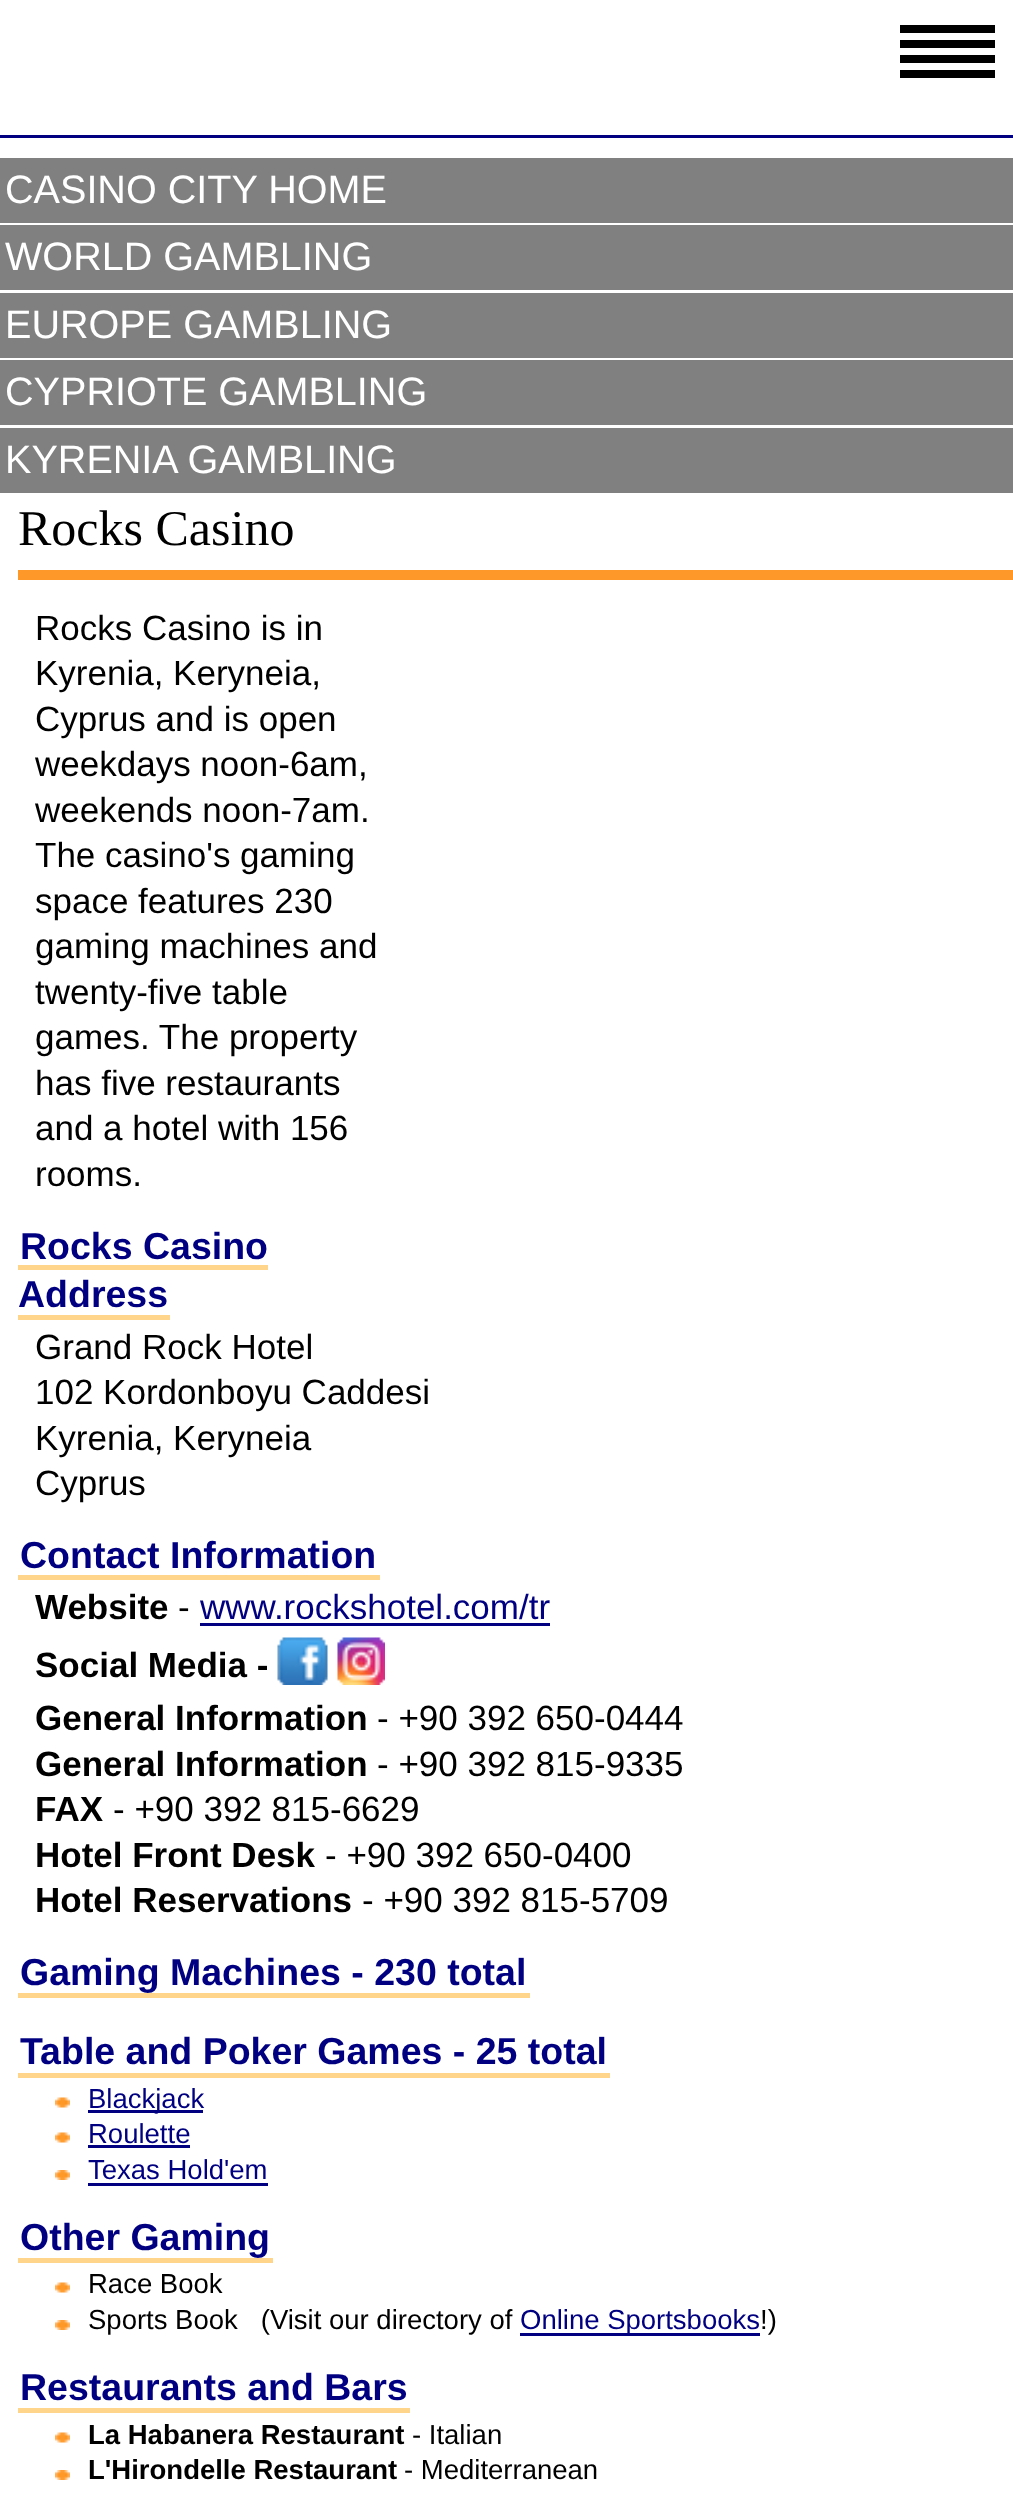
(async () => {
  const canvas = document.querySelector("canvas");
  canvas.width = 1013;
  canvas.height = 2503;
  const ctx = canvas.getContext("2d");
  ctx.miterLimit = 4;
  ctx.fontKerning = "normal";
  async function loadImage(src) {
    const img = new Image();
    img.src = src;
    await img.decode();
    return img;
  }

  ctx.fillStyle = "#ffffff";
  ctx.fillRect(0, 0, 1013, 2503);
  for (const [x, y, w, h, color] of [
    [900, 25, 95, 8, "#000000"],
    [900, 40, 95, 8, "#000000"],
    [900, 55, 95, 8, "#000000"],
    [900, 70, 95, 8, "#000000"],
    [0, 135, 1013, 3, "#000080"],
    [0, 158, 1013, 65, "#808080"],
    [0, 225, 1013, 65, "#808080"],
    [0, 293, 1013, 65, "#808080"],
    [0, 360, 1013, 65, "#808080"],
    [0, 428, 1013, 65, "#808080"],
    [18, 570, 995, 10, "#fe9929"],
    [18, 1265, 250, 5, "#fed58a"],
    [18, 1315, 152, 5, "#fed58a"],
    [18, 1575, 362, 5, "#fed58a"],
    [200, 1623, 350, 3, "#000080"],
  ]) {
    ctx.fillStyle = color;
    ctx.fillRect(x, y, w, h);
  }
  ctx.drawImage(await loadImage("img/1.png"), 277, 1637, 51, 48);
  ctx.drawImage(await loadImage("img/2.png"), 337, 1637, 48, 48);
  ctx.fillStyle = "#fed58a";
  ctx.fillRect(18, 1993, 512, 5);
  ctx.fillRect(18, 2073, 592, 5);
  ctx.drawImage(await loadImage("img/3.png"), 55, 2097, 15, 11);
  ctx.fillStyle = "#000080";
  ctx.fillRect(88, 2110, 115, 3);
  ctx.drawImage(await loadImage("img/3.png"), 55, 2132, 15, 11);
  ctx.fillRect(88, 2145, 102, 3);
  ctx.drawImage(await loadImage("img/4.png"), 55, 2170, 15, 10);
  ctx.fillRect(88, 2183, 180, 3);
  ctx.fillStyle = "#fed58a";
  ctx.fillRect(18, 2258, 255, 5);
  ctx.drawImage(await loadImage("img/3.png"), 55, 2282, 15, 11);
  ctx.drawImage(await loadImage("img/4.png"), 55, 2320, 15, 10);
  ctx.fillStyle = "#000080";
  ctx.fillRect(520, 2333, 240, 3);
  ctx.fillStyle = "#fed58a";
  ctx.fillRect(18, 2408, 392, 5);
  ctx.drawImage(await loadImage("img/3.png"), 55, 2432, 15, 11);
  ctx.drawImage(await loadImage("img/4.png"), 55, 2470, 15, 10);
  ctx.font = "39.6px Liberation Sans";
  ctx.fillStyle = "#ffffff";
  for (const [text, x, y] of [
    ["CASINO CITY HOME", 5, 203],
    ["WORLD GAMBLING", 5, 270],
    ["EUROPE GAMBLING", 5, 338],
    ["CYPRIOTE GAMBLING", 5, 405],
    ["KYRENIA GAMBLING", 5, 473],
  ]) {
    ctx.fillText(text, x, y);
  }
  ctx.font = "50px Liberation Serif";
  ctx.fillStyle = "#000000";
  ctx.fillText("Rocks Casino", 18, 545);
  ctx.font = "35px Liberation Sans";
  for (const [text, x, y] of [
    ["Rocks Casino is in", 35, 640],
    ["Kyrenia, Keryneia,", 35, 685],
    ["Cyprus and is open", 35, 731],
    ["weekdays noon-6am,", 35, 776],
    ["weekends noon-7am.", 35, 822],
    ["The casino's gaming", 35, 867],
    ["space features 230", 35, 913],
    ["gaming machines and", 35, 958],
    ["twenty-five table", 35, 1004],
    ["games. The property", 35, 1049],
    ["has five restaurants", 35, 1095],
    ["and a hotel with 156", 35, 1140],
    ["rooms.", 35, 1186],
  ]) {
    ctx.fillText(text, x, y);
  }
  ctx.font = "bold 37.5px Liberation Sans";
  ctx.fillStyle = "#000080";
  ctx.fillText("Rocks Casino", 20, 1259);
  ctx.fillText("Address", 18, 1307);
  ctx.font = "35px Liberation Sans";
  ctx.fillStyle = "#000000";
  for (const [text, x, y] of [
    ["Grand Rock Hotel", 35, 1359],
    ["102 Kordonboyu Caddesi", 35, 1404],
    ["Kyrenia, Keryneia", 35, 1450],
    ["Cyprus", 35, 1495],
  ]) {
    ctx.fillText(text, x, y);
  }
  ctx.font = "bold 37.5px Liberation Sans";
  ctx.fillStyle = "#000080";
  ctx.fillText("Contact Information", 20, 1568);
  ctx.font = "bold 35px Liberation Sans";
  ctx.fillStyle = "#000000";
  ctx.fillText("Website", 35, 1619);
  ctx.font = "35px Liberation Sans";
  ctx.fillText("-", 178, 1619);
  ctx.fillStyle = "#000080";
  ctx.fillText("www.rockshotel.com/tr", 200, 1619);
  ctx.font = "bold 35px Liberation Sans";
  ctx.fillStyle = "#000000";
  ctx.fillText("Social Media -", 35, 1677);
  ctx.fillText("General Information", 35, 1730);
  ctx.font = "35px Liberation Sans";
  ctx.fillText("- +90 392 650-0444", 377, 1730);
  ctx.font = "bold 35px Liberation Sans";
  ctx.fillText("General Information", 35, 1776);
  ctx.font = "35px Liberation Sans";
  ctx.fillText("- +90 392 815-9335", 377, 1776);
  ctx.font = "bold 35px Liberation Sans";
  ctx.fillText("FAX", 35, 1821);
  ctx.font = "35px Liberation Sans";
  ctx.fillText("- +90 392 815-6629", 113, 1821);
  ctx.font = "bold 35px Liberation Sans";
  ctx.fillText("Hotel Front Desk", 35, 1867);
  ctx.font = "35px Liberation Sans";
  ctx.fillText("- +90 392 650-0400", 325, 1867);
  ctx.font = "bold 35px Liberation Sans";
  ctx.fillText("Hotel Reservations", 35, 1912);
  ctx.font = "35px Liberation Sans";
  ctx.fillText("- +90 392 815-5709", 362, 1912);
  ctx.font = "bold 37.5px Liberation Sans";
  ctx.fillStyle = "#000080";
  ctx.fillText("Gaming Machines - 230 total", 20, 1985);
  ctx.fillText("Table and Poker Games - 25 total", 20, 2064);
  ctx.font = "27.5px Liberation Sans";
  for (const [text, x, y] of [
    ["Blackjack", 88, 2108],
    ["Roulette", 88, 2143],
    ["Texas Hold'em", 88, 2179],
  ]) {
    ctx.fillText(text, x, y);
  }
  ctx.font = "bold 37.5px Liberation Sans";
  ctx.fillText("Other Gaming", 20, 2250);
  ctx.font = "27.5px Liberation Sans";
  ctx.fillStyle = "#000000";
  ctx.fillText("Race Book", 88, 2293);
  ctx.fillText("Sports Book   (Visit our directory of", 88, 2329);
  ctx.fillStyle = "#000080";
  ctx.fillText("Online Sportsbooks", 520, 2329);
  ctx.fillStyle = "#000000";
  ctx.fillText("!)", 760, 2329);
  ctx.font = "bold 37.5px Liberation Sans";
  ctx.fillStyle = "#000080";
  ctx.fillText("Restaurants and Bars", 20, 2400);
  ctx.font = "bold 27.5px Liberation Sans";
  ctx.fillStyle = "#000000";
  ctx.fillText("La Habanera Restaurant", 88, 2444);
  ctx.font = "27.5px Liberation Sans";
  ctx.fillText("- Italian", 412, 2444);
  ctx.font = "bold 27.5px Liberation Sans";
  ctx.fillText("L'Hirondelle Restaurant", 88, 2479);
  ctx.font = "27.5px Liberation Sans";
  ctx.fillText("- Mediterranean", 404, 2479);
})();
